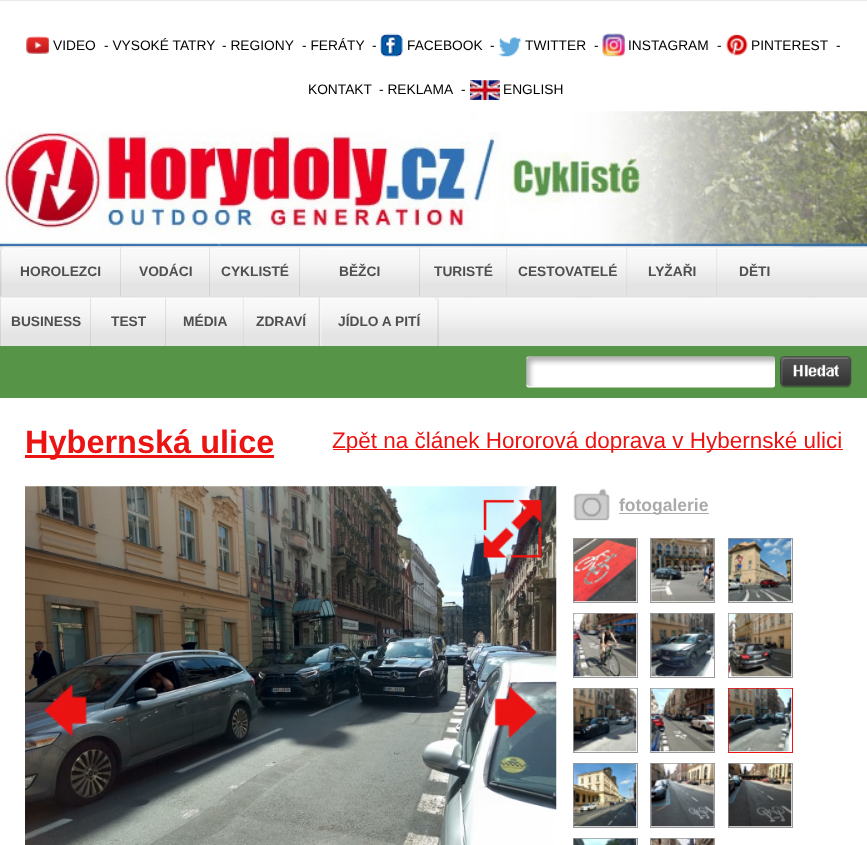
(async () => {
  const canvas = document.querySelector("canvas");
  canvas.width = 867;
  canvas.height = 845;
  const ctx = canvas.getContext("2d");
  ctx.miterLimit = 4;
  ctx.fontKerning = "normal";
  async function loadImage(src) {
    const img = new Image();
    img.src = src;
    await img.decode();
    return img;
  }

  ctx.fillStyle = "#e7e9ea";
  ctx.fillRect(0, 0, 867, 845);
  ctx.fillStyle = "#ffffff";
  ctx.fillRect(0, 1, 867, 844);
  ctx.drawImage(await loadImage("img/1.png"), 26, 36, 23, 18);
  ctx.drawImage(await loadImage("img/2.png"), 380, 33, 23, 24);
  ctx.drawImage(await loadImage("img/3.png"), 498, 37, 24, 20);
  ctx.drawImage(await loadImage("img/4.png"), 602, 33, 23, 24);
  ctx.drawImage(await loadImage("img/5.png"), 726, 34, 22, 22);
  ctx.drawImage(await loadImage("img/6.png"), 470, 80, 30, 20);
  ctx.drawImage(await loadImage("img/8.png"), 0, 246, 867, 100);
  ctx.drawImage(await loadImage("img/7.png"), 0, 111, 867, 136);
  ctx.drawImage(await loadImage("img/9.png"), 0, 246, 120, 51);
  ctx.drawImage(await loadImage("img/10.png"), 120, 246, 89, 51);
  ctx.drawImage(await loadImage("img/11.png"), 121, 246, 89, 50);
  ctx.drawImage(await loadImage("img/12.png"), 209, 246, 90, 51);
  ctx.drawImage(await loadImage("img/13.png"), 210, 246, 90, 50);
  ctx.drawImage(await loadImage("img/14.png"), 299, 246, 120, 51);
  ctx.drawImage(await loadImage("img/15.png"), 300, 246, 120, 50);
  ctx.drawImage(await loadImage("img/16.png"), 419, 246, 88, 51);
  ctx.drawImage(await loadImage("img/17.png"), 420, 246, 88, 50);
  ctx.drawImage(await loadImage("img/18.png"), 506, 246, 121, 51);
  ctx.drawImage(await loadImage("img/19.png"), 507, 246, 121, 50);
  ctx.drawImage(await loadImage("img/20.png"), 626, 246, 91, 51);
  ctx.drawImage(await loadImage("img/21.png"), 627, 246, 91, 50);
  ctx.drawImage(await loadImage("img/22.png"), 716, 246, 76, 51);
  ctx.drawImage(await loadImage("img/23.png"), 717, 246, 76, 50);
  ctx.drawImage(await loadImage("img/24.png"), 0, 297, 2, 49);
  ctx.drawImage(await loadImage("img/25.png"), 1, 297, 89, 49);
  ctx.drawImage(await loadImage("img/26.png"), 90, 297, 2, 49);
  ctx.drawImage(await loadImage("img/27.png"), 91, 297, 74, 49);
  ctx.drawImage(await loadImage("img/28.png"), 165, 296, 78, 50);
  ctx.drawImage(await loadImage("img/29.png"), 166, 297, 77, 49);
  ctx.drawImage(await loadImage("img/30.png"), 242, 297, 2, 49);
  ctx.drawImage(await loadImage("img/31.png"), 243, 297, 75, 49);
  ctx.drawImage(await loadImage("img/32.png"), 318, 296, 121, 50);
  ctx.fillStyle = "#569447";
  ctx.fillRect(0, 346, 867, 52);
  ctx.drawImage(await loadImage("img/33.png"), 526, 356, 249, 32);
  ctx.drawImage(await loadImage("img/34.png"), 780, 356, 72, 32);
  ctx.fillStyle = "#ec1313";
  ctx.fillRect(25, 455, 249, 3);
  ctx.fillRect(333, 449, 510, 1);
  ctx.drawImage(await loadImage("img/35.png"), 25, 486, 532, 359);
  ctx.drawImage(await loadImage("img/36.png"), 483, 499, 59, 59);
  ctx.drawImage(await loadImage("img/37.png"), 43, 683, 44, 54);
  ctx.drawImage(await loadImage("img/38.png"), 494, 686, 44, 53);
  ctx.drawImage(await loadImage("img/39.png"), 573, 488, 37, 33);
  ctx.fillStyle = "#aaaaaa";
  ctx.fillRect(619, 513, 90, 1);
  ctx.strokeStyle = "#999999";
  ctx.strokeRect(573.5, 538.5, 64, 64);
  ctx.drawImage(await loadImage("img/40.png"), 573, 538, 64, 64);
  ctx.strokeRect(650.5, 538.5, 64, 64);
  ctx.drawImage(await loadImage("img/41.png"), 651, 538, 63, 64);
  ctx.strokeRect(728.5, 538.5, 64, 64);
  ctx.drawImage(await loadImage("img/42.png"), 728, 538, 64, 64);
  ctx.strokeRect(573.5, 613.5, 64, 64);
  ctx.drawImage(await loadImage("img/43.png"), 573, 613, 64, 64);
  ctx.strokeRect(650.5, 613.5, 64, 64);
  ctx.drawImage(await loadImage("img/44.png"), 651, 613, 63, 64);
  ctx.strokeRect(728.5, 613.5, 64, 64);
  ctx.drawImage(await loadImage("img/45.png"), 728, 613, 64, 64);
  ctx.strokeRect(573.5, 688.5, 64, 64);
  ctx.drawImage(await loadImage("img/46.png"), 573, 688, 64, 64);
  ctx.strokeRect(650.5, 688.5, 64, 64);
  ctx.drawImage(await loadImage("img/47.png"), 651, 688, 63, 64);
  ctx.strokeStyle = "#ec1313";
  ctx.strokeRect(728.5, 688.5, 64, 64);
  ctx.drawImage(await loadImage("img/48.png"), 728, 688, 64, 64);
  ctx.strokeStyle = "#999999";
  ctx.strokeRect(573.5, 763.5, 64, 64);
  ctx.drawImage(await loadImage("img/49.png"), 573, 763, 64, 64);
  ctx.strokeRect(650.5, 763.5, 64, 64);
  ctx.drawImage(await loadImage("img/50.png"), 651, 763, 63, 64);
  ctx.strokeRect(728.5, 763.5, 64, 64);
  ctx.drawImage(await loadImage("img/51.png"), 728, 763, 64, 64);
  ctx.strokeRect(573.5, 838.5, 64, 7);
  ctx.drawImage(await loadImage("img/52.png"), 573, 838, 64, 7);
  ctx.strokeRect(650.5, 838.5, 64, 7);
  ctx.drawImage(await loadImage("img/53.png"), 651, 838, 63, 7);
  ctx.font = "13.75px Liberation Sans";
  ctx.fillStyle = "#000000";
  for (const [text, x, y] of [
    ["VIDEO", 53, 50],
    ["- VYSOKÉ TATRY", 104, 50],
    ["- REGIONY", 222, 50],
    ["- FERÁTY", 302, 50],
    ["-", 372, 50],
    ["FACEBOOK", 407, 50],
    ["-", 490, 50],
    ["TWITTER", 525, 50],
    ["-", 594, 50],
    ["INSTAGRAM", 628, 50],
    ["-", 717, 50],
    ["PINTEREST", 751, 50],
    ["-", 836, 50],
    ["KONTAKT", 308, 94],
    ["- REKLAMA", 379, 94],
    ["-", 461, 94],
    ["ENGLISH", 503, 94],
  ]) {
    ctx.fillText(text, x, y);
  }
  ctx.font = "bold 13.75px Liberation Sans";
  ctx.fillStyle = "#504f4f";
  for (const [text, x, y] of [
    ["HOROLEZCI", 20, 276],
    ["VODÁCI", 139, 276],
    ["CYKLISTÉ", 221, 276],
    ["BĚŽCI", 339, 276],
    ["TURISTÉ", 434, 276],
    ["CESTOVATELÉ", 518, 276],
    ["LYŽAŘI", 648, 276],
    ["DĚTI", 739, 276],
    ["BUSINESS", 11, 326],
    ["TEST", 111, 326],
    ["MÉDIA", 183, 326],
    ["ZDRAVÍ", 256, 326],
    ["JÍDLO A PITÍ", 338, 326],
  ]) {
    ctx.fillText(text, x, y);
  }
  ctx.font = "bold 32.5px Liberation Sans";
  ctx.fillStyle = "#ec1313";
  ctx.fillText("Hybernská ulice", 25, 453);
  ctx.font = "22.5px Liberation Sans";
  ctx.fillText("Zpět na článek Hororová doprava v Hybernské ulici", 332, 448);
  ctx.font = "bold 17.5px Liberation Sans";
  ctx.fillStyle = "#aaaaaa";
  ctx.fillText("fotogalerie", 619, 511);
})();
